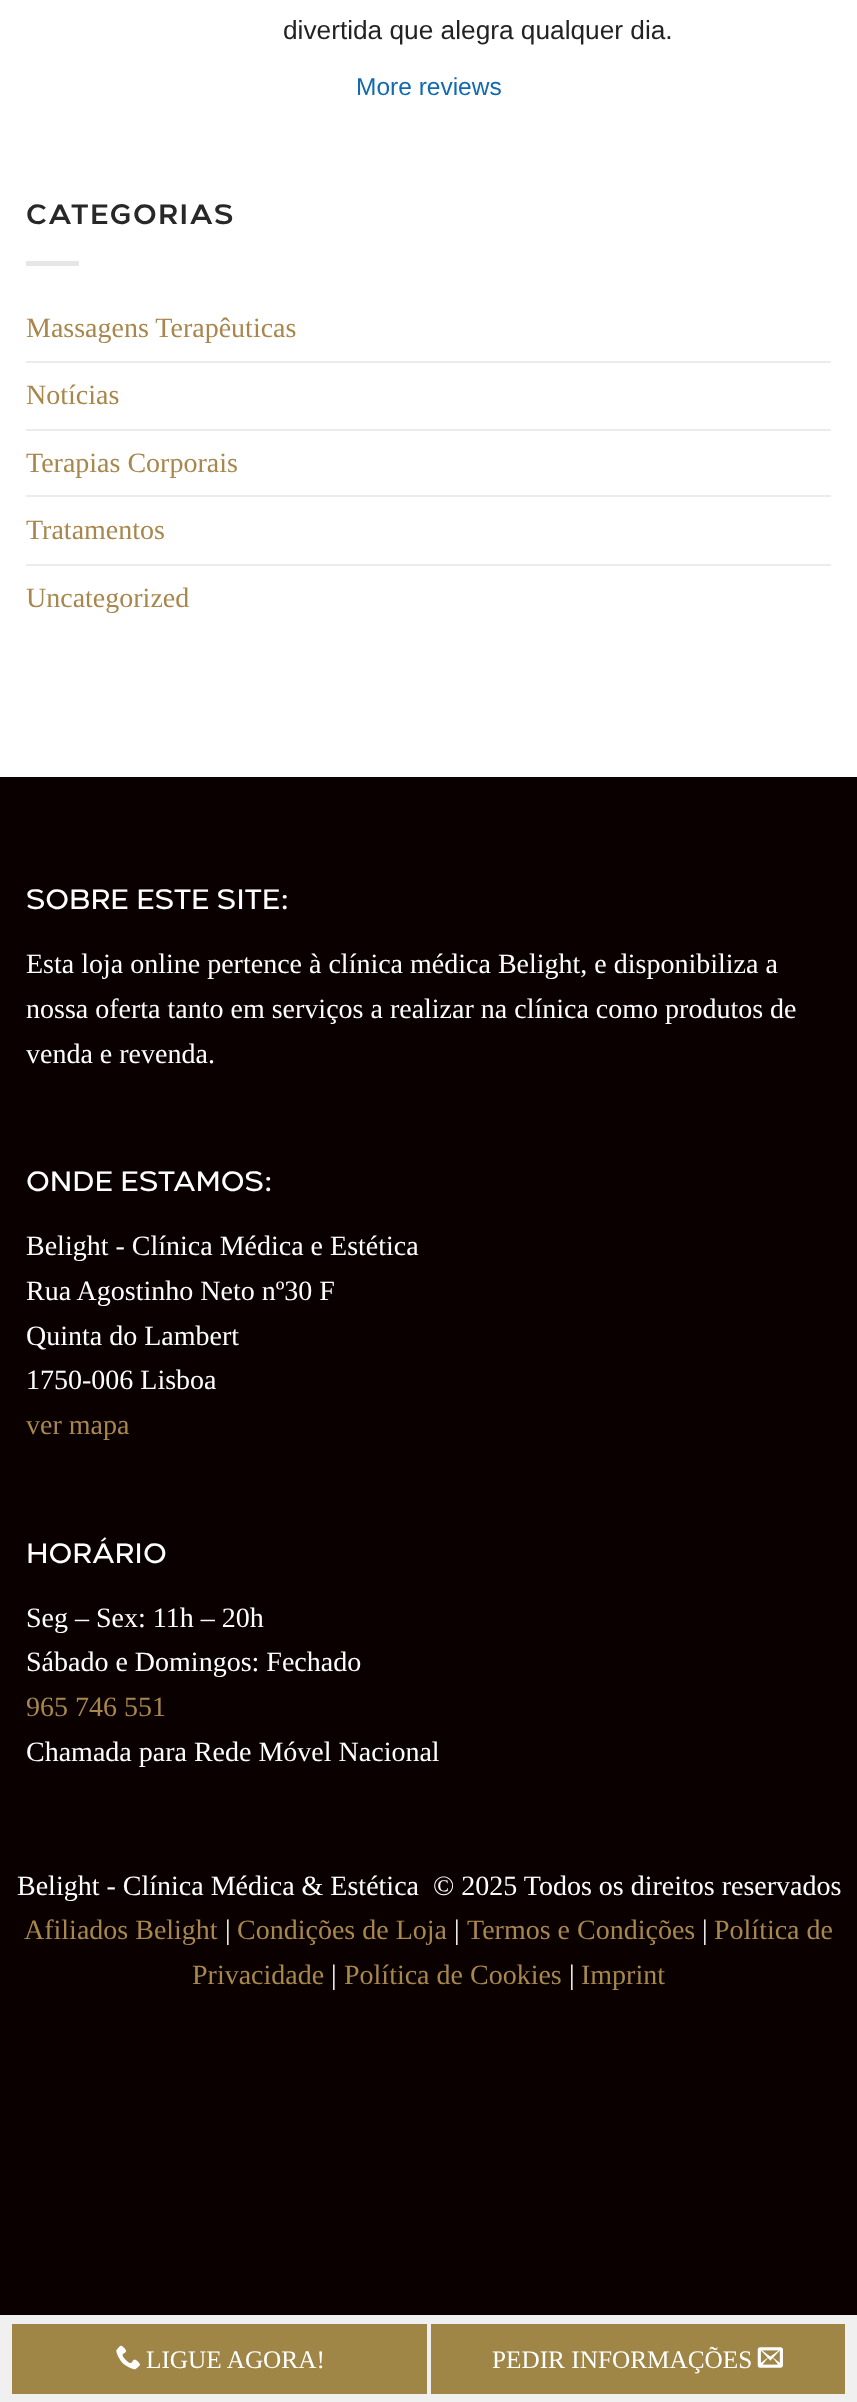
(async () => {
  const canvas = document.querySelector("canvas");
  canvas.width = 857;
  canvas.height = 2402;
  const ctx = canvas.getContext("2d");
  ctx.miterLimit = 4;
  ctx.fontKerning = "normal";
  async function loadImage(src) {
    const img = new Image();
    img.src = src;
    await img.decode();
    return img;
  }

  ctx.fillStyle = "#ffffff";
  ctx.fillRect(0, 0, 857, 2402);
  for (const [x, y, w, h, color] of [
    [26, 261, 53, 5, "#e6e6e6"],
    [26, 361, 805, 2, "#ececec"],
    [26, 429, 805, 2, "#ececec"],
    [26, 495, 805, 2, "#ececec"],
    [26, 564, 805, 2, "#ececec"],
    [0, 777, 857, 1538, "#0a0000"],
    [0, 2315, 857, 87, "#f0f0f1"],
    [12, 2324, 415, 70, "#9f8646"],
  ]) {
    ctx.fillStyle = color;
    ctx.fillRect(x, y, w, h);
  }
  ctx.drawImage(await loadImage("img/1.png"), 116, 2345, 24, 25);
  ctx.fillRect(431, 2324, 414, 70);
  ctx.drawImage(await loadImage("img/2.png"), 757, 2347, 26, 21);
  ctx.font = "26.25px Liberation Sans";
  ctx.fillStyle = "#222222";
  ctx.fillText("divertida que alegra qualquer dia.", 283, 39);
  ctx.font = "24.5px Liberation Sans";
  ctx.fillStyle = "#136aaf";
  ctx.fillText("More reviews", 356, 95);
  ctx.letterSpacing = "1.4px";
  ctx.font = "600 28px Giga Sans";
  ctx.fillStyle = "#282828";
  ctx.fillText("CATEGORIAS", 26, 224);
  ctx.letterSpacing = "0px";
  ctx.font = "28px Liberation Serif";
  ctx.fillStyle = "#a8874d";
  for (const [text, x, y] of [
    ["Massagens Terapêuticas", 26, 337],
    ["Notícias", 26, 404],
    ["Terapias Corporais", 26, 472],
    ["Tratamentos", 26, 539],
    ["Uncategorized", 26, 607],
  ]) {
    ctx.fillText(text, x, y);
  }
  ctx.font = "500 28px Giga Sans";
  ctx.fillStyle = "#ffffff";
  ctx.fillText("SOBRE ESTE SITE:", 26, 909);
  ctx.font = "28px Liberation Serif";
  for (const [text, x, y] of [
    ["Esta loja online pertence à clínica médica Belight, e disponibiliza a", 26, 973],
    ["nossa oferta tanto em serviços a realizar na clínica como produtos de", 26, 1018],
    ["venda e revenda.", 26, 1063],
  ]) {
    ctx.fillText(text, x, y);
  }
  ctx.font = "500 28px Giga Sans";
  ctx.fillText("ONDE ESTAMOS:", 26, 1191);
  ctx.font = "28px Liberation Serif";
  for (const [text, x, y] of [
    ["Belight - Clínica Médica e Estética", 26, 1255],
    ["Rua Agostinho Neto nº30 F", 26, 1300],
    ["Quinta do Lambert", 26, 1345],
    ["1750-006 Lisboa", 26, 1389],
  ]) {
    ctx.fillText(text, x, y);
  }
  ctx.fillStyle = "#a8874d";
  ctx.fillText("ver mapa", 26, 1434);
  ctx.font = "500 28px Giga Sans";
  ctx.fillStyle = "#ffffff";
  ctx.fillText("HORÁRIO", 26, 1563);
  ctx.font = "28px Liberation Serif";
  ctx.fillText("Seg – Sex: 11h – 20h", 26, 1627);
  ctx.fillText("Sábado e Domingos: Fechado", 26, 1671);
  ctx.fillStyle = "#a8874d";
  ctx.fillText("965 746 551", 26, 1716);
  ctx.fillStyle = "#ffffff";
  ctx.fillText("Chamada para Rede Móvel Nacional", 26, 1761);
  ctx.fillText("Belight - Clínica Médica & Estética  © 2025 Todos os direitos reservados", 17, 1895);
  ctx.fillStyle = "#a8874d";
  ctx.fillText("Afiliados Belight", 24, 1939);
  ctx.fillStyle = "#ffffff";
  ctx.fillText("|", 225, 1939);
  ctx.fillStyle = "#a8874d";
  ctx.fillText("Condições de Loja", 237, 1939);
  ctx.fillStyle = "#ffffff";
  ctx.fillText("|", 454, 1939);
  ctx.fillStyle = "#a8874d";
  ctx.fillText("Termos e Condições", 467, 1939);
  ctx.fillStyle = "#ffffff";
  ctx.fillText("|", 702, 1939);
  ctx.fillStyle = "#a8874d";
  ctx.fillText("Política de", 714, 1939);
  ctx.fillText("Privacidade", 192, 1984);
  ctx.fillStyle = "#ffffff";
  ctx.fillText("|", 331, 1984);
  ctx.fillStyle = "#a8874d";
  ctx.fillText("Política de Cookies", 344, 1984);
  ctx.fillStyle = "#ffffff";
  ctx.fillText("|", 569, 1984);
  ctx.fillStyle = "#a8874d";
  ctx.fillText("Imprint", 581, 1984);
  ctx.font = "25.25px Liberation Serif";
  ctx.fillStyle = "#ffffff";
  ctx.fillText("LIGUE AGORA!", 146, 2368);
  ctx.fillText("PEDIR INFORMAÇÕES", 492, 2368);
})();
